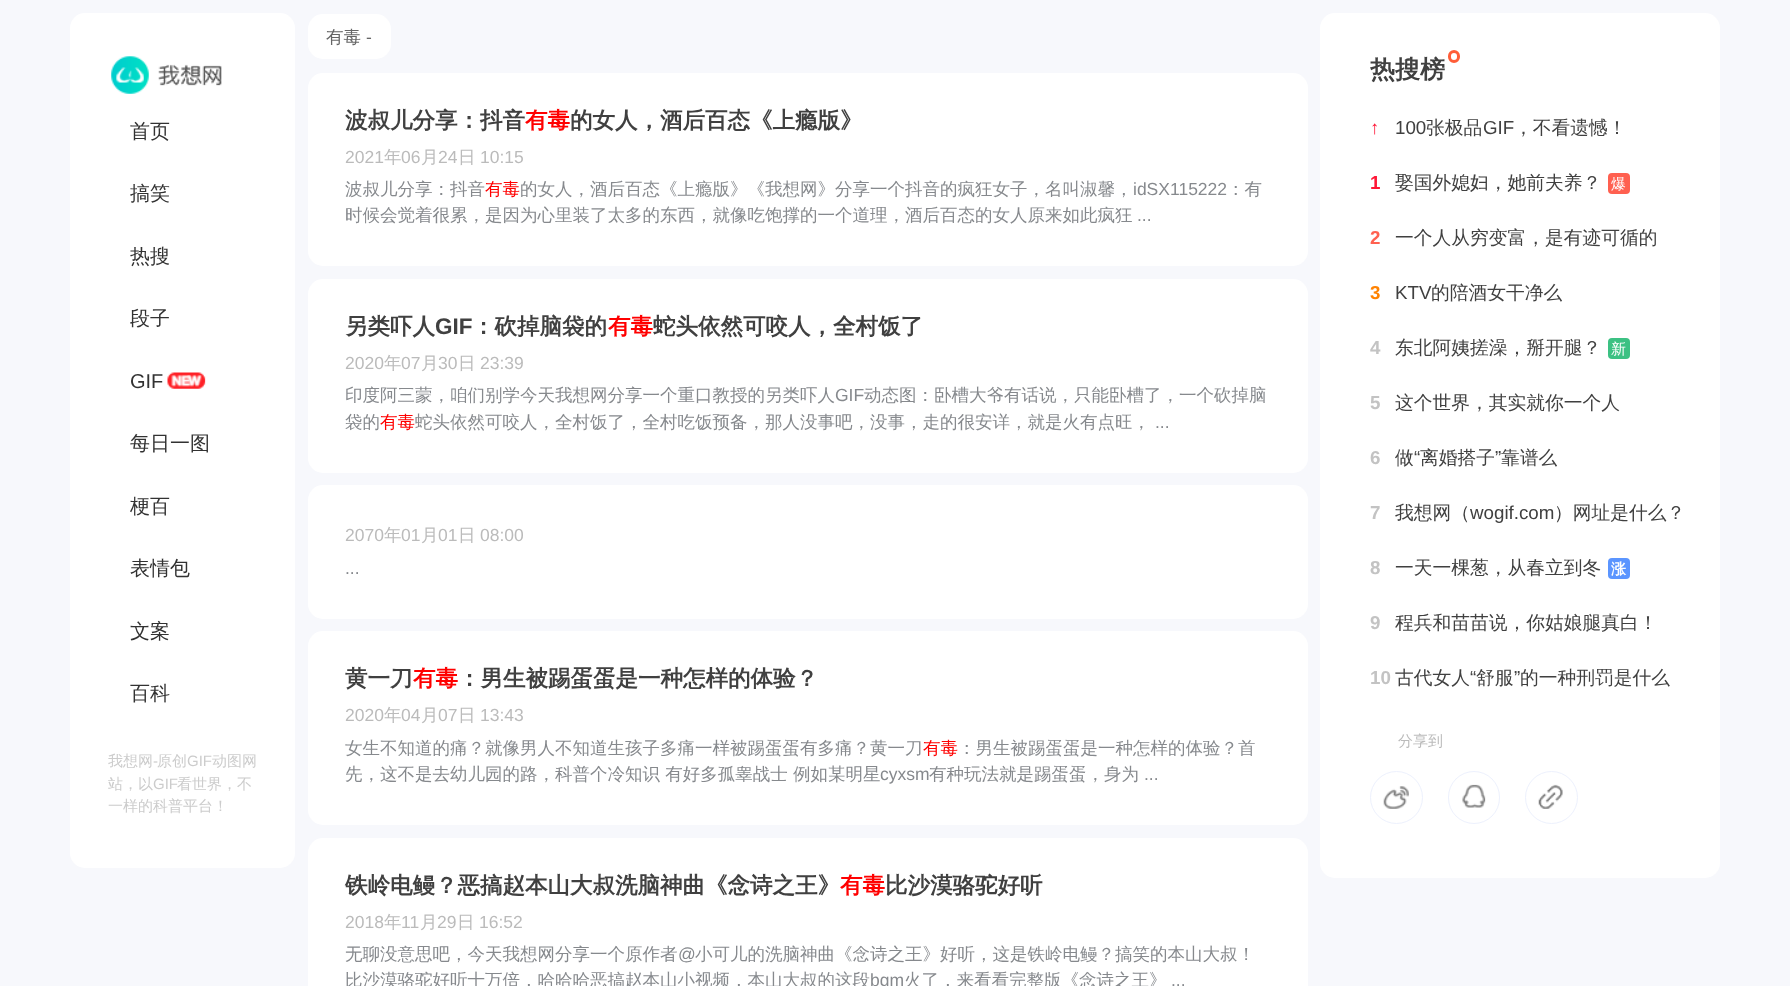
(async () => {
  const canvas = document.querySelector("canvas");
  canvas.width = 1790;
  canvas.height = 986;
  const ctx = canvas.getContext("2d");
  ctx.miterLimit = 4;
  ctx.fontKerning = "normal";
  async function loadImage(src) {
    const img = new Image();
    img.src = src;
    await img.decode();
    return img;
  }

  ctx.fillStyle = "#f7f8fc";
  ctx.fillRect(0, 0, 1790, 986);
  ctx.fillStyle = "#ffffff";
  ctx.beginPath();
  ctx.roundRect(70, 13, 225, 855, 15);
  ctx.fill();
  ctx.drawImage(await loadImage("img/1.png"), 167, 372, 39, 17);
  ctx.drawImage(await loadImage("img/2.png"), 111, 56, 111, 38);
  ctx.beginPath();
  ctx.roundRect(308, 14, 83, 45, 15);
  ctx.fill();
  ctx.beginPath();
  ctx.roundRect(308, 73, 1000, 193, 15);
  ctx.fill();
  ctx.beginPath();
  ctx.roundRect(308, 279, 1000, 194, 15);
  ctx.fill();
  ctx.beginPath();
  ctx.roundRect(308, 485, 1000, 134, 15);
  ctx.fill();
  ctx.beginPath();
  ctx.roundRect(308, 631, 1000, 194, 15);
  ctx.fill();
  ctx.beginPath();
  ctx.roundRect(308, 838, 1000, 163, 15);
  ctx.fill();
  ctx.beginPath();
  ctx.roundRect(1320, 13, 400, 865, 15);
  ctx.fill();
  ctx.beginPath();
  ctx.roundRect(1449.5, 51.5, 9, 10, 4.5);
  ctx.strokeStyle = "#ff5d38";
  ctx.lineWidth = 3;
  ctx.stroke();
  ctx.fillStyle = "#ff6050";
  ctx.beginPath();
  ctx.roundRect(1608, 173, 22, 21, 4);
  ctx.fill();
  ctx.fillStyle = "#3cc183";
  ctx.beginPath();
  ctx.roundRect(1608, 338, 22, 21, 4);
  ctx.fill();
  ctx.fillStyle = "#5b95ff";
  ctx.beginPath();
  ctx.roundRect(1608, 558, 22, 21, 4);
  ctx.fill();
  ctx.drawImage(await loadImage("img/3.png"), 1383, 786, 26, 23);
  ctx.beginPath();
  ctx.arc(1396.5, 797.5, 26, 0, Math.PI * 2);
  ctx.strokeStyle = "#edf1fd";
  ctx.lineWidth = 1;
  ctx.stroke();
  ctx.drawImage(await loadImage("img/4.png"), 1462, 784, 24, 24);
  ctx.beginPath();
  ctx.roundRect(1448.5, 771.5, 51, 52, 25.5);
  ctx.stroke();
  ctx.drawImage(await loadImage("img/5.png"), 1538, 784, 25, 25);
  ctx.beginPath();
  ctx.arc(1551.5, 797.5, 26, 0, Math.PI * 2);
  ctx.stroke();
  ctx.font = "500 20px WenQuanYi Zen Hei";
  ctx.fillStyle = "#323232";
  for (const [text, x, y] of [
    ["首页", 130, 138],
    ["搞笑", 130, 200],
    ["热搜", 130, 263],
    ["段子", 130, 325],
  ]) {
    ctx.fillText(text, x, y);
  }
  ctx.font = "20px Liberation Sans";
  ctx.fillText("GIF", 130, 388);
  ctx.font = "500 20px WenQuanYi Zen Hei";
  for (const [text, x, y] of [
    ["每日一图", 130, 450],
    ["梗百", 130, 513],
    ["表情包", 130, 575],
    ["文案", 130, 638],
    ["百科", 130, 700],
  ]) {
    ctx.fillText(text, x, y);
  }
  ctx.font = "500 15px WenQuanYi Zen Hei";
  ctx.fillStyle = "#cccccc";
  ctx.fillText("我想网", 108, 766);
  ctx.font = "15px Liberation Sans";
  ctx.fillText("-", 153, 766);
  ctx.font = "500 15px WenQuanYi Zen Hei";
  ctx.fillText("原创", 157, 766);
  ctx.font = "15px Liberation Sans";
  ctx.fillText("GIF", 187, 766);
  ctx.font = "500 15px WenQuanYi Zen Hei";
  ctx.fillText("动图网", 212, 766);
  ctx.fillText("站，以", 108, 789);
  ctx.font = "15px Liberation Sans";
  ctx.fillText("GIF", 153, 789);
  ctx.font = "500 15px WenQuanYi Zen Hei";
  ctx.fillText("看世界，不", 177, 789);
  ctx.fillText("一样的科普平台！", 108, 811);
  ctx.font = "500 17.5px WenQuanYi Zen Hei";
  ctx.fillStyle = "#666666";
  ctx.fillText("有毒", 326, 43);
  ctx.font = "17.5px Liberation Sans";
  ctx.fillText("-", 366, 43);
  ctx.font = "bold 22.5px WenQuanYi Zen Hei";
  ctx.fillStyle = "#404040";
  ctx.fillText("波叔儿分享：抖音", 345, 128);
  ctx.fillStyle = "#ff0000";
  ctx.fillText("有毒", 525, 128);
  ctx.fillStyle = "#404040";
  ctx.fillText("的女人，酒后百态《上瘾版》", 570, 128);
  ctx.font = "17.5px Liberation Sans";
  ctx.fillStyle = "#bbbbbb";
  ctx.fillText("2021", 345, 163);
  ctx.font = "500 17.5px WenQuanYi Zen Hei";
  ctx.fillText("年", 384, 163);
  ctx.font = "17.5px Liberation Sans";
  ctx.fillText("06", 401, 163);
  ctx.font = "500 17.5px WenQuanYi Zen Hei";
  ctx.fillText("月", 421, 163);
  ctx.font = "17.5px Liberation Sans";
  ctx.fillText("24", 438, 163);
  ctx.font = "500 17.5px WenQuanYi Zen Hei";
  ctx.fillText("日", 458, 163);
  ctx.font = "17.5px Liberation Sans";
  ctx.fillText("10:15", 480, 163);
  ctx.font = "500 17.5px WenQuanYi Zen Hei";
  ctx.fillStyle = "#86898d";
  ctx.fillText("波叔儿分享：抖音", 345, 195);
  ctx.fillStyle = "#ff0000";
  ctx.fillText("有毒", 485, 195);
  ctx.fillStyle = "#86898d";
  ctx.fillText("的女人，酒后百态《上瘾版》《我想网》分享一个抖音的疯狂女子，名叫淑馨，", 520, 195);
  ctx.font = "17.5px Liberation Sans";
  ctx.fillText("idSX115222", 1133, 195);
  ctx.font = "500 17.5px WenQuanYi Zen Hei";
  ctx.fillText("：有", 1227, 195);
  ctx.fillText("时候会觉着很累，是因为心里装了太多的东西，就像吃饱撑的一个道理，酒后百态的女人原来如此疯狂", 345, 221);
  ctx.font = "17.5px Liberation Sans";
  ctx.fillText("...", 1137, 221);
  ctx.font = "bold 22.5px WenQuanYi Zen Hei";
  ctx.fillStyle = "#404040";
  ctx.fillText("另类吓人", 345, 334);
  ctx.font = "bold 22.5px Liberation Sans";
  ctx.fillText("GIF", 435, 334);
  ctx.font = "bold 22.5px WenQuanYi Zen Hei";
  ctx.fillText("：砍掉脑袋的", 472, 334);
  ctx.fillStyle = "#ff0000";
  ctx.fillText("有毒", 608, 334);
  ctx.fillStyle = "#404040";
  ctx.fillText("蛇头依然可咬人，全村饭了", 653, 334);
  ctx.font = "17.5px Liberation Sans";
  ctx.fillStyle = "#bbbbbb";
  ctx.fillText("2020", 345, 369);
  ctx.font = "500 17.5px WenQuanYi Zen Hei";
  ctx.fillText("年", 384, 369);
  ctx.font = "17.5px Liberation Sans";
  ctx.fillText("07", 401, 369);
  ctx.font = "500 17.5px WenQuanYi Zen Hei";
  ctx.fillText("月", 421, 369);
  ctx.font = "17.5px Liberation Sans";
  ctx.fillText("30", 438, 369);
  ctx.font = "500 17.5px WenQuanYi Zen Hei";
  ctx.fillText("日", 458, 369);
  ctx.font = "17.5px Liberation Sans";
  ctx.fillText("23:39", 480, 369);
  ctx.font = "500 17.5px WenQuanYi Zen Hei";
  ctx.fillStyle = "#86898d";
  ctx.fillText("印度阿三蒙，咱们别学今天我想网分享一个重口教授的另类吓人", 345, 401);
  ctx.font = "17.5px Liberation Sans";
  ctx.fillText("GIF", 835, 401);
  ctx.font = "500 17.5px WenQuanYi Zen Hei";
  ctx.fillText("动态图：卧槽大爷有话说，只能卧槽了，一个砍掉脑", 864, 401);
  ctx.fillText("袋的", 345, 428);
  ctx.fillStyle = "#ff0000";
  ctx.fillText("有毒", 380, 428);
  ctx.fillStyle = "#86898d";
  ctx.fillText("蛇头依然可咬人，全村饭了，全村吃饭预备，那人没事吧，没事，走的很安详，就是火有点旺，", 415, 428);
  ctx.font = "17.5px Liberation Sans";
  ctx.fillText("...", 1155, 428);
  ctx.fillStyle = "#bbbbbb";
  ctx.fillText("2070", 345, 541);
  ctx.font = "500 17.5px WenQuanYi Zen Hei";
  ctx.fillText("年", 384, 541);
  ctx.font = "17.5px Liberation Sans";
  ctx.fillText("01", 401, 541);
  ctx.font = "500 17.5px WenQuanYi Zen Hei";
  ctx.fillText("月", 421, 541);
  ctx.font = "17.5px Liberation Sans";
  ctx.fillText("01", 438, 541);
  ctx.font = "500 17.5px WenQuanYi Zen Hei";
  ctx.fillText("日", 458, 541);
  ctx.font = "17.5px Liberation Sans";
  ctx.fillText("08:00", 480, 541);
  ctx.fillStyle = "#86898d";
  ctx.fillText("...", 345, 574);
  ctx.font = "bold 22.5px WenQuanYi Zen Hei";
  ctx.fillStyle = "#404040";
  ctx.fillText("黄一刀", 345, 686);
  ctx.fillStyle = "#ff0000";
  ctx.fillText("有毒", 413, 686);
  ctx.fillStyle = "#404040";
  ctx.fillText("：男生被踢蛋蛋是一种怎样的体验？", 458, 686);
  ctx.font = "17.5px Liberation Sans";
  ctx.fillStyle = "#bbbbbb";
  ctx.fillText("2020", 345, 721);
  ctx.font = "500 17.5px WenQuanYi Zen Hei";
  ctx.fillText("年", 384, 721);
  ctx.font = "17.5px Liberation Sans";
  ctx.fillText("04", 401, 721);
  ctx.font = "500 17.5px WenQuanYi Zen Hei";
  ctx.fillText("月", 421, 721);
  ctx.font = "17.5px Liberation Sans";
  ctx.fillText("07", 438, 721);
  ctx.font = "500 17.5px WenQuanYi Zen Hei";
  ctx.fillText("日", 458, 721);
  ctx.font = "17.5px Liberation Sans";
  ctx.fillText("13:43", 480, 721);
  ctx.font = "500 17.5px WenQuanYi Zen Hei";
  ctx.fillStyle = "#86898d";
  ctx.fillText("女生不知道的痛？就像男人不知道生孩子多痛一样被踢蛋蛋有多痛？黄一刀", 345, 754);
  ctx.fillStyle = "#ff0000";
  ctx.fillText("有毒", 923, 754);
  ctx.fillStyle = "#86898d";
  ctx.fillText("：男生被踢蛋蛋是一种怎样的体验？首", 958, 754);
  ctx.fillText("先，这不是去幼儿园的路，科普个冷知识 有好多孤睾战士 例如某明星", 345, 780);
  ctx.font = "17.5px Liberation Sans";
  ctx.fillText("cyxsm", 880, 780);
  ctx.font = "500 17.5px WenQuanYi Zen Hei";
  ctx.fillText("有种玩法就是踢蛋蛋，身为", 929, 780);
  ctx.font = "17.5px Liberation Sans";
  ctx.fillText("...", 1144, 780);
  ctx.font = "bold 22.5px WenQuanYi Zen Hei";
  ctx.fillStyle = "#404040";
  ctx.fillText("铁岭电鳗？恶搞赵本山大叔洗脑神曲《念诗之王》", 345, 893);
  ctx.fillStyle = "#ff0000";
  ctx.fillText("有毒", 840, 893);
  ctx.fillStyle = "#404040";
  ctx.fillText("比沙漠骆驼好听", 885, 893);
  ctx.font = "17.5px Liberation Sans";
  ctx.fillStyle = "#bbbbbb";
  ctx.fillText("2018", 345, 928);
  ctx.font = "500 17.5px WenQuanYi Zen Hei";
  ctx.fillText("年", 384, 928);
  ctx.font = "17.5px Liberation Sans";
  ctx.fillText("11", 401, 928);
  ctx.font = "500 17.5px WenQuanYi Zen Hei";
  ctx.fillText("月", 420, 928);
  ctx.font = "17.5px Liberation Sans";
  ctx.fillText("29", 437, 928);
  ctx.font = "500 17.5px WenQuanYi Zen Hei";
  ctx.fillText("日", 457, 928);
  ctx.font = "17.5px Liberation Sans";
  ctx.fillText("16:52", 479, 928);
  ctx.font = "500 17.5px WenQuanYi Zen Hei";
  ctx.fillStyle = "#86898d";
  ctx.fillText("无聊没意思吧，今天我想网分享一个原作者", 345, 960);
  ctx.font = "17.5px Liberation Sans";
  ctx.fillText("@", 678, 960);
  ctx.font = "500 17.5px WenQuanYi Zen Hei";
  ctx.fillText("小可儿的洗脑神曲《念诗之王》好听，这是铁岭电鳗？搞笑的本山大叔！", 695, 960);
  ctx.fillText("比沙漠骆驼好听十万倍，哈哈哈恶搞赵本山小视频，本山大叔的这段", 345, 986);
  ctx.font = "17.5px Liberation Sans";
  ctx.fillText("bgm", 870, 986);
  ctx.font = "500 17.5px WenQuanYi Zen Hei";
  ctx.fillText("火了，来看看完整版《念诗之王》", 904, 986);
  ctx.font = "17.5px Liberation Sans";
  ctx.fillText("...", 1171, 986);
  ctx.font = "bold 25px WenQuanYi Zen Hei";
  ctx.fillStyle = "#404040";
  ctx.fillText("热搜榜", 1370, 78);
  ctx.font = "bold 18.75px Liberation Sans";
  ctx.fillStyle = "#ff1636";
  ctx.fillText("↑", 1370, 134);
  ctx.font = "18.75px Liberation Sans";
  ctx.fillStyle = "#404040";
  ctx.fillText("100", 1395, 134);
  ctx.font = "500 18.75px WenQuanYi Zen Hei";
  ctx.fillText("张极品", 1426, 134);
  ctx.font = "18.75px Liberation Sans";
  ctx.fillText("GIF", 1483, 134);
  ctx.font = "500 18.75px WenQuanYi Zen Hei";
  ctx.fillText("，不看遗憾！", 1514, 134);
  ctx.font = "bold 18.75px Liberation Sans";
  ctx.fillStyle = "#ff1636";
  ctx.fillText("1", 1370, 189);
  ctx.font = "500 18.75px WenQuanYi Zen Hei";
  ctx.fillStyle = "#404040";
  ctx.fillText("娶国外媳妇，她前夫养？", 1395, 189);
  ctx.font = "500 15px WenQuanYi Zen Hei";
  ctx.fillStyle = "#ffffff";
  ctx.fillText("爆", 1611, 189);
  ctx.font = "bold 18.75px Liberation Sans";
  ctx.fillStyle = "#ff6150";
  ctx.fillText("2", 1370, 244);
  ctx.font = "500 18.75px WenQuanYi Zen Hei";
  ctx.fillStyle = "#404040";
  ctx.fillText("一个人从穷变富，是有迹可循的", 1395, 244);
  ctx.font = "bold 18.75px Liberation Sans";
  ctx.fillStyle = "#ff8200";
  ctx.fillText("3", 1370, 299);
  ctx.font = "18.75px Liberation Sans";
  ctx.fillStyle = "#404040";
  ctx.fillText("KTV", 1395, 299);
  ctx.font = "500 18.75px WenQuanYi Zen Hei";
  ctx.fillText("的陪酒女干净么", 1431, 299);
  ctx.font = "bold 18.75px Liberation Sans";
  ctx.fillStyle = "#c3c3c3";
  ctx.fillText("4", 1370, 354);
  ctx.font = "500 18.75px WenQuanYi Zen Hei";
  ctx.fillStyle = "#404040";
  ctx.fillText("东北阿姨搓澡，掰开腿？", 1395, 354);
  ctx.font = "500 15px WenQuanYi Zen Hei";
  ctx.fillStyle = "#ffffff";
  ctx.fillText("新", 1611, 354);
  ctx.font = "bold 18.75px Liberation Sans";
  ctx.fillStyle = "#c3c3c3";
  ctx.fillText("5", 1370, 409);
  ctx.font = "500 18.75px WenQuanYi Zen Hei";
  ctx.fillStyle = "#404040";
  ctx.fillText("这个世界，其实就你一个人", 1395, 409);
  ctx.font = "bold 18.75px Liberation Sans";
  ctx.fillStyle = "#c3c3c3";
  ctx.fillText("6", 1370, 464);
  ctx.font = "500 18.75px WenQuanYi Zen Hei";
  ctx.fillStyle = "#404040";
  ctx.fillText("做", 1395, 464);
  ctx.font = "18.75px Liberation Sans";
  ctx.fillText("“", 1414, 464);
  ctx.font = "500 18.75px WenQuanYi Zen Hei";
  ctx.fillText("离婚搭子", 1420, 464);
  ctx.font = "18.75px Liberation Sans";
  ctx.fillText("”", 1495, 464);
  ctx.font = "500 18.75px WenQuanYi Zen Hei";
  ctx.fillText("靠谱么", 1501, 464);
  ctx.font = "bold 18.75px Liberation Sans";
  ctx.fillStyle = "#c3c3c3";
  ctx.fillText("7", 1370, 519);
  ctx.font = "500 18.75px WenQuanYi Zen Hei";
  ctx.fillStyle = "#404040";
  ctx.fillText("我想网（", 1395, 519);
  ctx.font = "18.75px Liberation Sans";
  ctx.fillText("wogif.com", 1470, 519);
  ctx.font = "500 18.75px WenQuanYi Zen Hei";
  ctx.fillText("）网址是什么？", 1554, 519);
  ctx.font = "bold 18.75px Liberation Sans";
  ctx.fillStyle = "#c3c3c3";
  ctx.fillText("8", 1370, 574);
  ctx.font = "500 18.75px WenQuanYi Zen Hei";
  ctx.fillStyle = "#404040";
  ctx.fillText("一天一棵葱，从春立到冬", 1395, 574);
  ctx.font = "bold 15px WenQuanYi Zen Hei";
  ctx.fillStyle = "#ffffff";
  ctx.fillText("涨", 1611, 574);
  ctx.font = "bold 18.75px Liberation Sans";
  ctx.fillStyle = "#c3c3c3";
  ctx.fillText("9", 1370, 629);
  ctx.font = "500 18.75px WenQuanYi Zen Hei";
  ctx.fillStyle = "#404040";
  ctx.fillText("程兵和苗苗说，你姑娘腿真白！", 1395, 629);
  ctx.font = "bold 18.75px Liberation Sans";
  ctx.fillStyle = "#c3c3c3";
  ctx.fillText("10", 1370, 684);
  ctx.font = "500 18.75px WenQuanYi Zen Hei";
  ctx.fillStyle = "#404040";
  ctx.fillText("古代女人", 1395, 684);
  ctx.font = "18.75px Liberation Sans";
  ctx.fillText("“", 1470, 684);
  ctx.font = "500 18.75px WenQuanYi Zen Hei";
  ctx.fillText("舒服", 1476, 684);
  ctx.font = "18.75px Liberation Sans";
  ctx.fillText("”", 1514, 684);
  ctx.font = "500 18.75px WenQuanYi Zen Hei";
  ctx.fillText("的一种刑罚是什么", 1520, 684);
  ctx.font = "500 15px WenQuanYi Zen Hei";
  ctx.fillStyle = "#bbbbbb";
  ctx.fillText("分享到", 1398, 746);
})();
